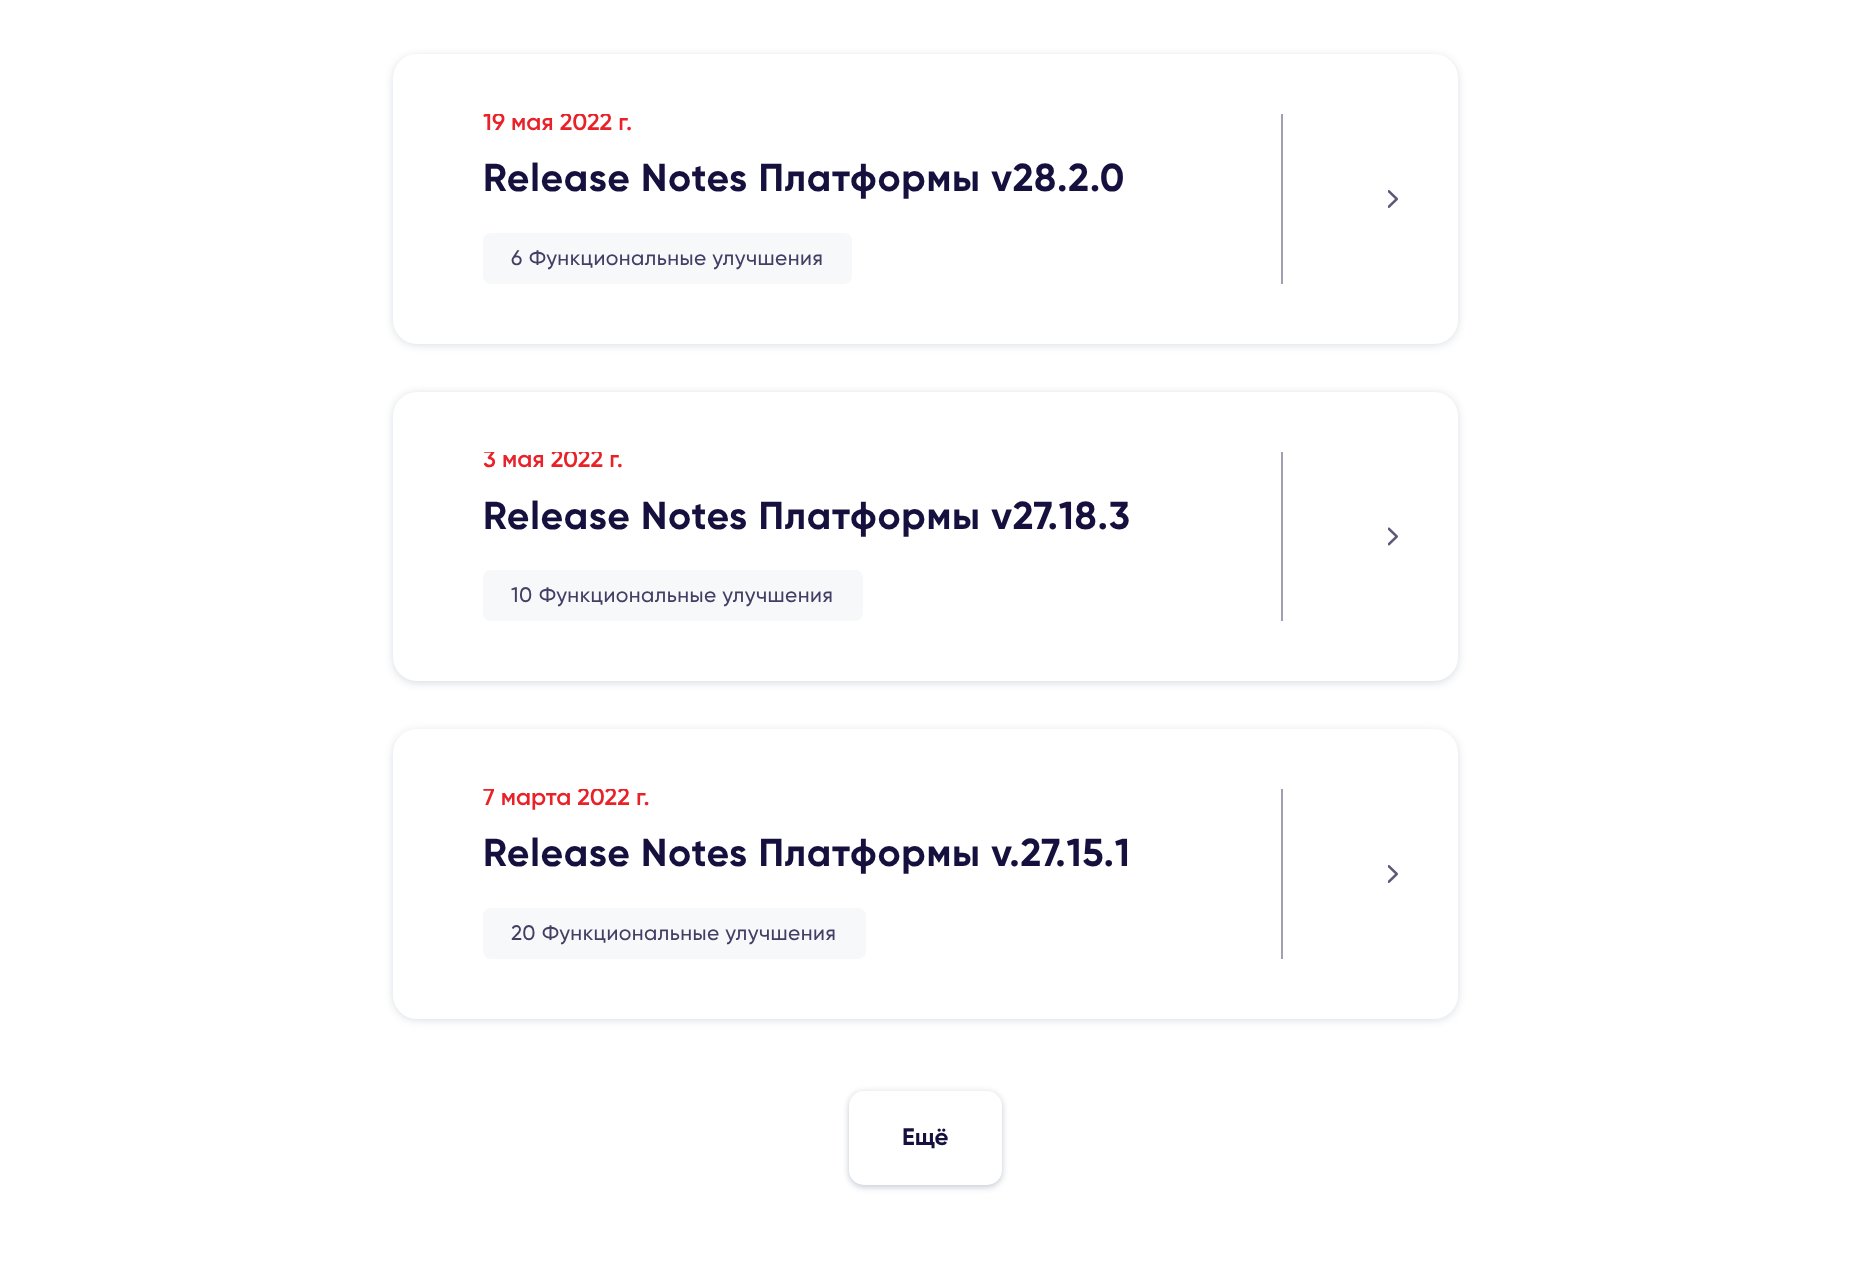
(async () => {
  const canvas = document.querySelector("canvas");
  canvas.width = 1850;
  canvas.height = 1274;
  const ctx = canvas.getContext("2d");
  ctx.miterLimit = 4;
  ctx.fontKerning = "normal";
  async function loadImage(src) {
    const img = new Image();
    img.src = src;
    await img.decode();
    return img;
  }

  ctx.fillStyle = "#ffffff";
  ctx.fillRect(0, 0, 1850, 1274);
  ctx.fillStyle = "rgba(0, 26, 66, 0.15)";
  ctx.filter = "blur(4px)";
  ctx.beginPath();
  ctx.roundRect(393, 56, 1065, 289, 24);
  ctx.fill();
  ctx.filter = "none";
  ctx.fillStyle = "#ffffff";
  ctx.beginPath();
  ctx.roundRect(393, 54, 1065, 290, 24);
  ctx.fill();
  ctx.fillStyle = "#a29fb2";
  ctx.fillRect(1281, 114, 2, 170);
  ctx.fillStyle = "#f6f8fa";
  ctx.beginPath();
  ctx.roundRect(483, 233, 369, 51, 8);
  ctx.fill();
  ctx.drawImage(await loadImage("img/1.png"), 1388, 190, 10, 18);
  ctx.fillStyle = "rgba(0, 26, 66, 0.15)";
  ctx.filter = "blur(4px)";
  ctx.beginPath();
  ctx.roundRect(393, 393, 1065, 290, 24);
  ctx.fill();
  ctx.filter = "none";
  ctx.fillStyle = "#ffffff";
  ctx.beginPath();
  ctx.roundRect(393, 392, 1065, 289, 24);
  ctx.fill();
  ctx.fillStyle = "#a29fb2";
  ctx.fillRect(1281, 452, 2, 169);
  ctx.fillStyle = "#f6f8fa";
  ctx.beginPath();
  ctx.roundRect(483, 570, 380, 51, 8);
  ctx.fill();
  ctx.drawImage(await loadImage("img/2.png"), 1388, 527, 10, 19);
  ctx.fillStyle = "rgba(0, 26, 66, 0.15)";
  ctx.filter = "blur(4px)";
  ctx.beginPath();
  ctx.roundRect(393, 731, 1065, 289, 24);
  ctx.fill();
  ctx.filter = "none";
  ctx.fillStyle = "#ffffff";
  ctx.beginPath();
  ctx.roundRect(393, 729, 1065, 290, 24);
  ctx.fill();
  ctx.fillStyle = "#a29fb2";
  ctx.fillRect(1281, 789, 2, 170);
  ctx.fillStyle = "#f6f8fa";
  ctx.beginPath();
  ctx.roundRect(483, 908, 383, 51, 8);
  ctx.fill();
  ctx.drawImage(await loadImage("img/1.png"), 1388, 865, 10, 18);
  ctx.fillStyle = "rgba(0, 26, 66, 0.15)";
  ctx.filter = "blur(3px)";
  ctx.beginPath();
  ctx.roundRect(849, 1094, 153, 94, 15);
  ctx.fill();
  ctx.filter = "none";
  ctx.fillStyle = "rgba(0, 26, 66, 0.1)";
  ctx.filter = "blur(3px)";
  ctx.beginPath();
  ctx.roundRect(849, 1091, 153, 94, 15);
  ctx.fill();
  ctx.filter = "none";
  ctx.fillStyle = "#ffffff";
  ctx.beginPath();
  ctx.roundRect(849, 1091, 153, 94, 15);
  ctx.fill();
  ctx.save();
  ctx.beginPath();
  ctx.rect(483, 114, 798, 170);
  ctx.clip();
  ctx.font = "600 24px Gilroy";
  ctx.fillStyle = "#e92128";
  ctx.fillText("19 мая 2022 г.", 483, 130);
  ctx.restore();
  ctx.letterSpacing = "0.75px";
  ctx.font = "bold 39px Gilroy";
  ctx.fillStyle = "#16103e";
  ctx.fillText("Release Notes Платформы v28.2.0", 483, 191);
  ctx.letterSpacing = "0.4px";
  ctx.font = "500 21px Gilroy";
  ctx.fillStyle = "#433e64";
  ctx.fillText("6", 511, 265);
  ctx.fillText("Функциональные улучшения", 529, 265);
  ctx.save();
  ctx.beginPath();
  ctx.rect(483, 452, 798, 169);
  ctx.clip();
  ctx.letterSpacing = "0px";
  ctx.font = "600 24px Gilroy";
  ctx.fillStyle = "#e92128";
  ctx.fillText("3 мая 2022 г.", 483, 467);
  ctx.restore();
  ctx.letterSpacing = "0.75px";
  ctx.font = "bold 39px Gilroy";
  ctx.fillStyle = "#16103e";
  ctx.fillText("Release Notes Платформы v27.18.3", 483, 529);
  ctx.letterSpacing = "0.4px";
  ctx.font = "500 21px Gilroy";
  ctx.fillStyle = "#433e64";
  ctx.fillText("10", 511, 602);
  ctx.fillText("Функциональные улучшения", 539, 602);
  ctx.save();
  ctx.beginPath();
  ctx.rect(483, 789, 798, 170);
  ctx.clip();
  ctx.letterSpacing = "0px";
  ctx.font = "600 24px Gilroy";
  ctx.fillStyle = "#e92128";
  ctx.fillText("7 марта 2022 г.", 483, 805);
  ctx.restore();
  ctx.letterSpacing = "0.75px";
  ctx.font = "bold 39px Gilroy";
  ctx.fillStyle = "#16103e";
  ctx.fillText("Release Notes Платформы v.27.15.1", 483, 866);
  ctx.letterSpacing = "0.4px";
  ctx.font = "500 21px Gilroy";
  ctx.fillStyle = "#433e64";
  ctx.fillText("20", 511, 940);
  ctx.fillText("Функциональные улучшения", 542, 940);
  ctx.letterSpacing = "0px";
  ctx.font = "bold 24px Gilroy";
  ctx.fillStyle = "#16103e";
  ctx.fillText("Eщё", 902, 1145);
})();
